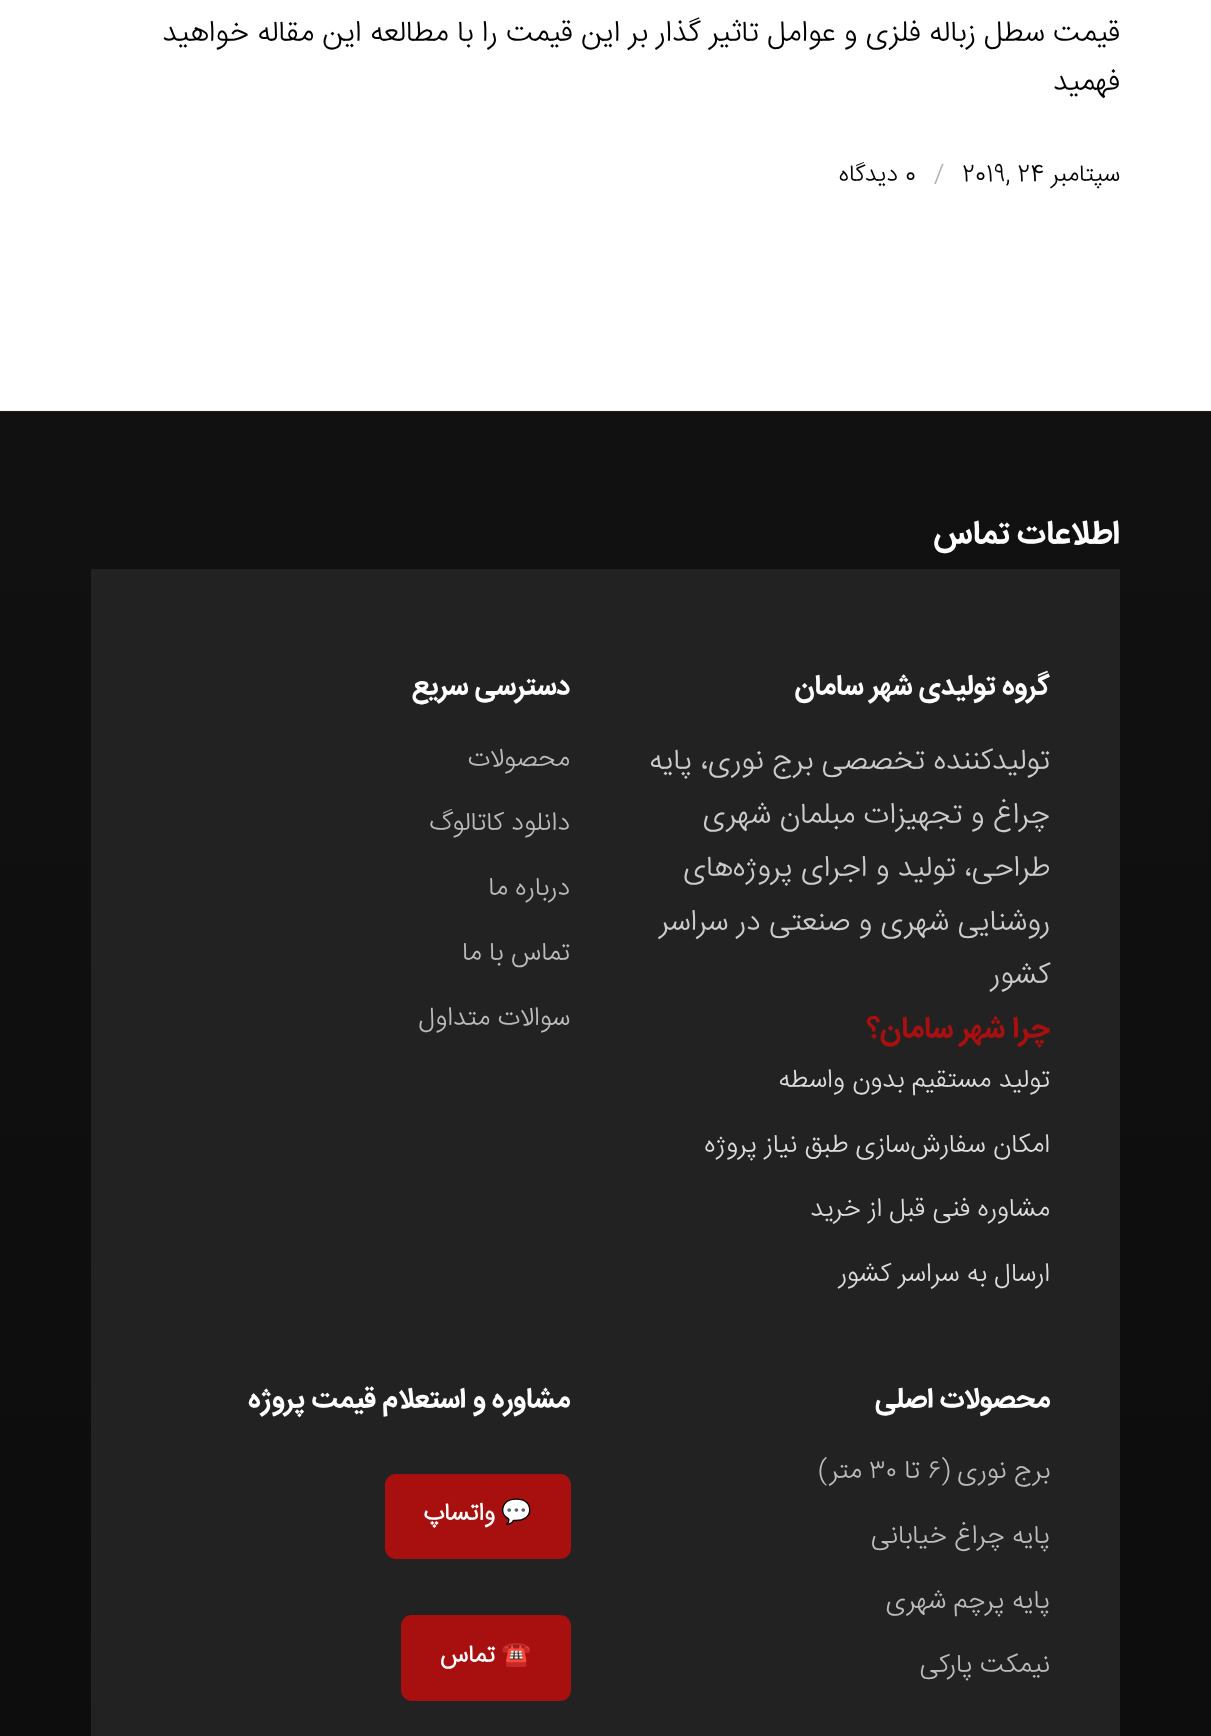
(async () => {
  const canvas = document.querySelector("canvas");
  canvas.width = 1211;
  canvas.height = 1736;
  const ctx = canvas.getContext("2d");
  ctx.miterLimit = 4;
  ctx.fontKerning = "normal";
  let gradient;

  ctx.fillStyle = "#ffecda";
  ctx.fillRect(0, 0, 1211, 1736);
  ctx.fillStyle = "#ffffff";
  ctx.fillRect(0, 0, 1211, 410);
  gradient = ctx.createLinearGradient(605, 411, 606, 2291);
  gradient.addColorStop(0, "#111111");
  gradient.addColorStop(1, "#0b0b0b");
  ctx.fillStyle = gradient;
  ctx.fillRect(0, 412, 1211, 1324);
  gradient = ctx.createLinearGradient(605, 411, 606, 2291);
  gradient.addColorStop(0, "#1f1f1f");
  gradient.addColorStop(1, "#1a1a1a");
  ctx.fillStyle = gradient;
  ctx.fillRect(0, 411, 1211, 1);
  ctx.fillStyle = "#222222";
  ctx.fillRect(91, 569, 1029, 1167);
  ctx.fillStyle = "#a81010";
  ctx.beginPath();
  ctx.roundRect(385, 1474, 186, 85, 11);
  ctx.fill();
  ctx.beginPath();
  ctx.roundRect(401, 1615, 170, 86, 11);
  ctx.fill();
  ctx.direction = "rtl";
  ctx.font = "300 29.75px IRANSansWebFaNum";
  ctx.fillStyle = "#000000";
  ctx.fillText("قیمت سطل زباله فلزی و عوامل تاثیر گذار بر این قیمت را با مطالعه این مقاله خواهید", 1120, 41);
  ctx.fillText("فهمید", 1120, 90);
  ctx.font = "300 24px IRANSansWebFaNum";
  ctx.fillText("سپتامبر", 1120, 181);
  ctx.direction = "ltr";
  ctx.fillText("2019, 24", 962, 181);
  ctx.fillStyle = "#b3b3b3";
  ctx.fillText("/", 934, 181);
  ctx.fillStyle = "#000000";
  ctx.fillText("0", 905, 181);
  ctx.direction = "rtl";
  ctx.fillText("دیدگاه", 898, 181);
  ctx.font = "bold 32.75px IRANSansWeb";
  ctx.fillStyle = "#ffffff";
  ctx.fillText("اطلاعات تماس", 1120, 543);
  ctx.font = "bold 28px IRANSansWeb";
  ctx.fillText("گروه تولیدی شهر سامان", 1050, 694);
  ctx.font = "300 29.75px IRANSansWebFaNum";
  ctx.fillStyle = "#cccccc";
  for (const [text, x, y] of [
    ["تولیدکننده تخصصی برج نوری، پایه", 1050, 769],
    ["چراغ و تجهیزات مبلمان شهری", 1050, 823],
    ["طراحی، تولید و اجرای پروژه‌های", 1050, 876],
    ["روشنایی شهری و صنعتی در سراسر", 1050, 930],
    ["کشور", 1050, 983],
  ]) {
    ctx.fillText(text, x, y);
  }
  ctx.font = "bold 29.75px IRANSansWeb";
  ctx.fillStyle = "#a81010";
  ctx.fillText("چرا شهر سامان؟", 1050, 1037);
  ctx.font = "300 26.25px IRANSansWebFaNum";
  ctx.fillStyle = "#dddddd";
  for (const [text, x, y] of [
    ["تولید مستقیم بدون واسطه", 1050, 1087],
    ["امکان سفارش‌سازی طبق نیاز پروژه", 1050, 1152],
    ["مشاوره فنی قبل از خرید", 1050, 1216],
    ["ارسال به سراسر کشور", 1050, 1281],
  ]) {
    ctx.fillText(text, x, y);
  }
  ctx.font = "bold 28px IRANSansWeb";
  ctx.fillStyle = "#ffffff";
  ctx.fillText("دسترسی سریع", 570, 694);
  ctx.font = "300 26.25px IRANSansWebFaNum";
  ctx.fillStyle = "#bbbbbb";
  for (const [text, x, y] of [
    ["محصولات", 570, 766],
    ["دانلود کاتالوگ", 570, 830],
    ["درباره ما", 570, 895],
    ["تماس با ما", 570, 960],
    ["سوالات متداول", 570, 1025],
  ]) {
    ctx.fillText(text, x, y);
  }
  ctx.font = "bold 28px IRANSansWeb";
  ctx.fillStyle = "#ffffff";
  ctx.fillText("محصولات اصلی", 1050, 1407);
  ctx.font = "300 26.25px IRANSansWebFaNum";
  ctx.fillStyle = "#bbbbbb";
  ctx.fillText("برج نوری (", 1050, 1478);
  ctx.direction = "ltr";
  ctx.fillText("۶", 928, 1478);
  ctx.direction = "rtl";
  ctx.fillText("تا", 920, 1478);
  ctx.direction = "ltr";
  ctx.fillText("۳۰", 869, 1478);
  ctx.direction = "rtl";
  for (const [text, x, y] of [
    ["متر)", 862, 1478],
    ["پایه چراغ خیابانی", 1050, 1543],
    ["پایه پرچم شهری", 1050, 1608],
    ["نیمکت پارکی", 1050, 1672],
  ]) {
    ctx.fillText(text, x, y);
  }
  ctx.font = "bold 28px IRANSansWeb";
  ctx.fillStyle = "#ffffff";
  ctx.fillText("مشاوره و استعلام قیمت پروژه", 570, 1407);
  ctx.font = "bold 24.5px Noto Color Emoji";
  ctx.fillText("💬", 532, 1520);
  ctx.font = "bold 24.5px IRANSansWebFaNum";
  ctx.fillText("واتساپ", 495, 1520);
  ctx.font = "bold 24.5px Noto Color Emoji";
  ctx.fillText("☎️", 532, 1662);
  ctx.font = "bold 24.5px IRANSansWebFaNum";
  ctx.fillText("تماس", 495, 1662);
})();
